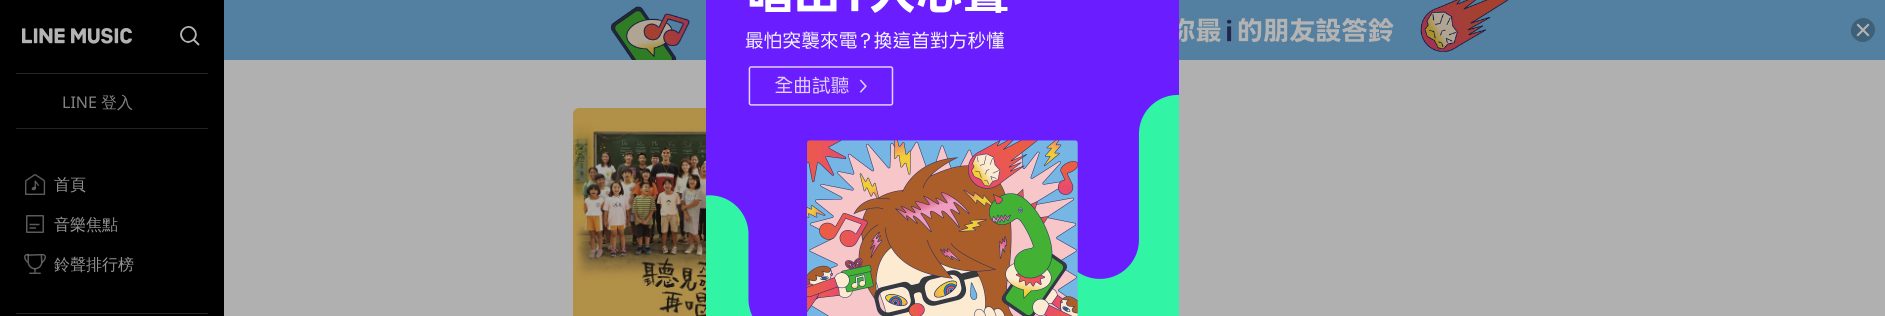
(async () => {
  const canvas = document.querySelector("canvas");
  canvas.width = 1885;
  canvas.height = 316;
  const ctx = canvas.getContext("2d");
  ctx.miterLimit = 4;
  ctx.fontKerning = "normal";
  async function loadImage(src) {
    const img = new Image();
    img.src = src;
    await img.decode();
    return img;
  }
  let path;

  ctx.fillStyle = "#b0b0b0";
  ctx.fillRect(0, 0, 1885, 316);
  ctx.fillStyle = "#000000";
  ctx.fillRect(0, 0, 224, 316);
  ctx.drawImage(await loadImage("img/1.png"), 22, 28, 110, 16);
  path = new Path2D("M193.5 29C201 36 189.5 47 183 39.5C176.5 32.5 187 22.5 193.5 29ZM194 40L199 45");
  ctx.strokeStyle = "#b3b3b3";
  ctx.lineWidth = 1.9;
  ctx.stroke(path);
  for (const [x, y, w, h, color] of [
    [16, 73, 192, 1, "#242424"],
    [16, 128, 192, 1, "#242424"],
    [16, 313, 192, 1, "#242424"],
  ]) {
    ctx.fillStyle = color;
    ctx.fillRect(x, y, w, h);
  }
  ctx.drawImage(await loadImage("img/2.png"), 25, 174, 21, 21);
  ctx.beginPath();
  ctx.roundRect(26.75, 215.75, 16.5, 16.5, 0.25);
  ctx.strokeStyle = "#5b5b5b";
  ctx.lineWidth = 1.5;
  ctx.stroke();
  path = new Path2D("M29.5 224.5H39.5M29.5 228H36");
  ctx.stroke(path);
  ctx.drawImage(await loadImage("img/3.png"), 24, 253, 22, 21);
  ctx.fillStyle = "#537fa0";
  ctx.fillRect(224, 0, 1661, 60);
  ctx.drawImage(await loadImage("img/4.png"), 611, 0, 898, 60);
  ctx.fillStyle = "#3e6078";
  path = new Path2D("M1871.5 21.5C1882.5 32.5 1865.5 49.5 1854.5 38.5C1843.5 27.5 1860.5 10.5 1871.5 21.5Z");
  ctx.fill(path);
  ctx.fillStyle = "#b3b3b3";
  path = new Path2D("M1858 23.5L1869.5 35L1868 36.5L1856.5 25Z");
  ctx.fill(path);
  path = new Path2D("M1868 23.5L1869.5 25L1858 36.5L1856.5 35Z");
  ctx.fill(path);
  ctx.drawImage(await loadImage("img/5.png"), 573, 108, 133, 208);
  ctx.drawImage(await loadImage("img/6.png"), 706, 0, 473, 316);
  ctx.font = "16px Noto Sans";
  ctx.fillStyle = "#828282";
  ctx.fillText("LINE", 62, 108);
  ctx.font = "500 16px WenQuanYi Zen Hei";
  ctx.fillText("登入", 101, 108);
  ctx.fillStyle = "#8f8f8f";
  for (const [text, x, y] of [
    ["首頁", 54, 190],
    ["音樂焦點", 54, 230],
    ["鈴聲排行榜", 54, 270],
  ]) {
    ctx.fillText(text, x, y);
  }
})();
